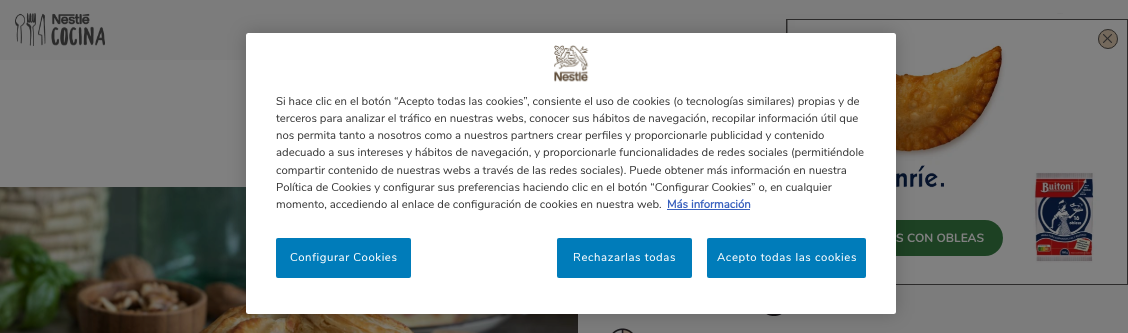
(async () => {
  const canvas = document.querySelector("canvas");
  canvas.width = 1128;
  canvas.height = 333;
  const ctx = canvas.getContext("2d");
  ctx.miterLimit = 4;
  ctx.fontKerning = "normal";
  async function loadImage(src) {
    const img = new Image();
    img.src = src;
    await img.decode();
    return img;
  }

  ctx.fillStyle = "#808080";
  ctx.fillRect(0, 0, 1128, 333);
  ctx.fillStyle = "#7c7c7c";
  ctx.fillRect(0, 0, 1128, 60);
  ctx.drawImage(await loadImage("img/4.png"), 0, 187, 578, 146);
  ctx.fillRect(578, 285, 550, 48);
  ctx.drawImage(await loadImage("img/5.png"), 766, 314, 16, 2);
  ctx.drawImage(await loadImage("img/6.png"), 612, 328, 21, 5);
  ctx.strokeStyle = "#2c2b2b";
  ctx.strokeRect(786.5, 19.5, 341, 265);
  ctx.drawImage(await loadImage("img/8.png"), 787, 20, 340, 264);
  ctx.drawImage(await loadImage("img/9.png"), 896, 165, 48, 23);
  ctx.fillStyle = "#1d4123";
  ctx.beginPath();
  ctx.roundRect(804, 220, 199, 36, 18);
  ctx.fill();
  ctx.fillStyle = "rgba(0, 0, 0, 0.2)";
  ctx.filter = "blur(9px)";
  ctx.beginPath();
  ctx.roundRect(246, 33, 650, 281, 2.5);
  ctx.fill();
  ctx.filter = "none";
  ctx.fillStyle = "#ffffff";
  ctx.beginPath();
  ctx.roundRect(246, 33, 650, 281, 2.5);
  ctx.fill();
  ctx.drawImage(await loadImage("img/1.png"), 554, 45, 35, 37);
  ctx.fillStyle = "#3860be";
  ctx.fillRect(667, 209, 83, 1);
  ctx.fillStyle = "#007cba";
  ctx.beginPath();
  ctx.roundRect(276, 238, 135, 40, 2);
  ctx.fill();
  ctx.beginPath();
  ctx.roundRect(557, 238, 135, 40, 2);
  ctx.fill();
  ctx.beginPath();
  ctx.roundRect(707, 238, 159, 40, 2);
  ctx.fill();
  ctx.drawImage(await loadImage("img/2.png"), 15, 13, 90, 33);
  ctx.drawImage(await loadImage("img/3.png"), 1057, 13, 6, 1);
  ctx.fillStyle = "#74695c";
  ctx.beginPath();
  ctx.arc(1108, 39, 10, 0, Math.PI * 2);
  ctx.fill();
  ctx.drawImage(await loadImage("img/7.png"), 1103, 34, 9, 9);
  ctx.beginPath();
  ctx.arc(1108, 39, 9.5, 0, Math.PI * 2);
  ctx.stroke();
  ctx.font = "11.38px Nunito";
  ctx.fillStyle = "#333333";
  for (const [text, x, y] of [
    ["Si hace clic en el botón “Acepto todas las cookies”, consiente el uso de cookies (o tecnologías similares) propias y de", 276, 105],
    ["terceros para analizar el tráfico en nuestras webs, conocer sus hábitos de navegación, recopilar información útil que", 276, 122],
    ["nos permita tanto a nosotros como a nuestros partners crear perfiles y proporcionarle publicidad y contenido", 276, 139],
    ["adecuado a sus intereses y hábitos de navegación, y proporcionarle funcionalidades de redes sociales (permitiéndole", 276, 156],
    ["compartir contenido de nuestras webs a través de las redes sociales). Puede obtener más información en nuestra", 276, 174],
    ["Política de Cookies y configurar sus preferencias haciendo clic en el botón “Configurar Cookies” o, en cualquier", 276, 191],
    ["momento, accediendo al enlace de configuración de cookies en nuestra web.", 276, 208],
  ]) {
    ctx.fillText(text, x, y);
  }
  ctx.font = "bold 11.38px 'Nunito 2'";
  ctx.fillStyle = "#3860be";
  ctx.fillText("Más información", 667, 208);
  ctx.letterSpacing = "0.6px";
  ctx.font = "11.38px Nunito";
  ctx.fillStyle = "#ffffff";
  for (const [text, x, y] of [
    ["Configurar Cookies", 290, 261],
    ["Rechazarlas todas", 573, 261],
    ["Acepto todas las cookies", 717, 261],
  ]) {
    ctx.fillText(text, x, y);
  }
  ctx.letterSpacing = "0px";
  ctx.font = "bold 12px Nunito";
  ctx.fillStyle = "#808080";
  ctx.fillText("S CON OBLEAS", 896, 242);
})();
